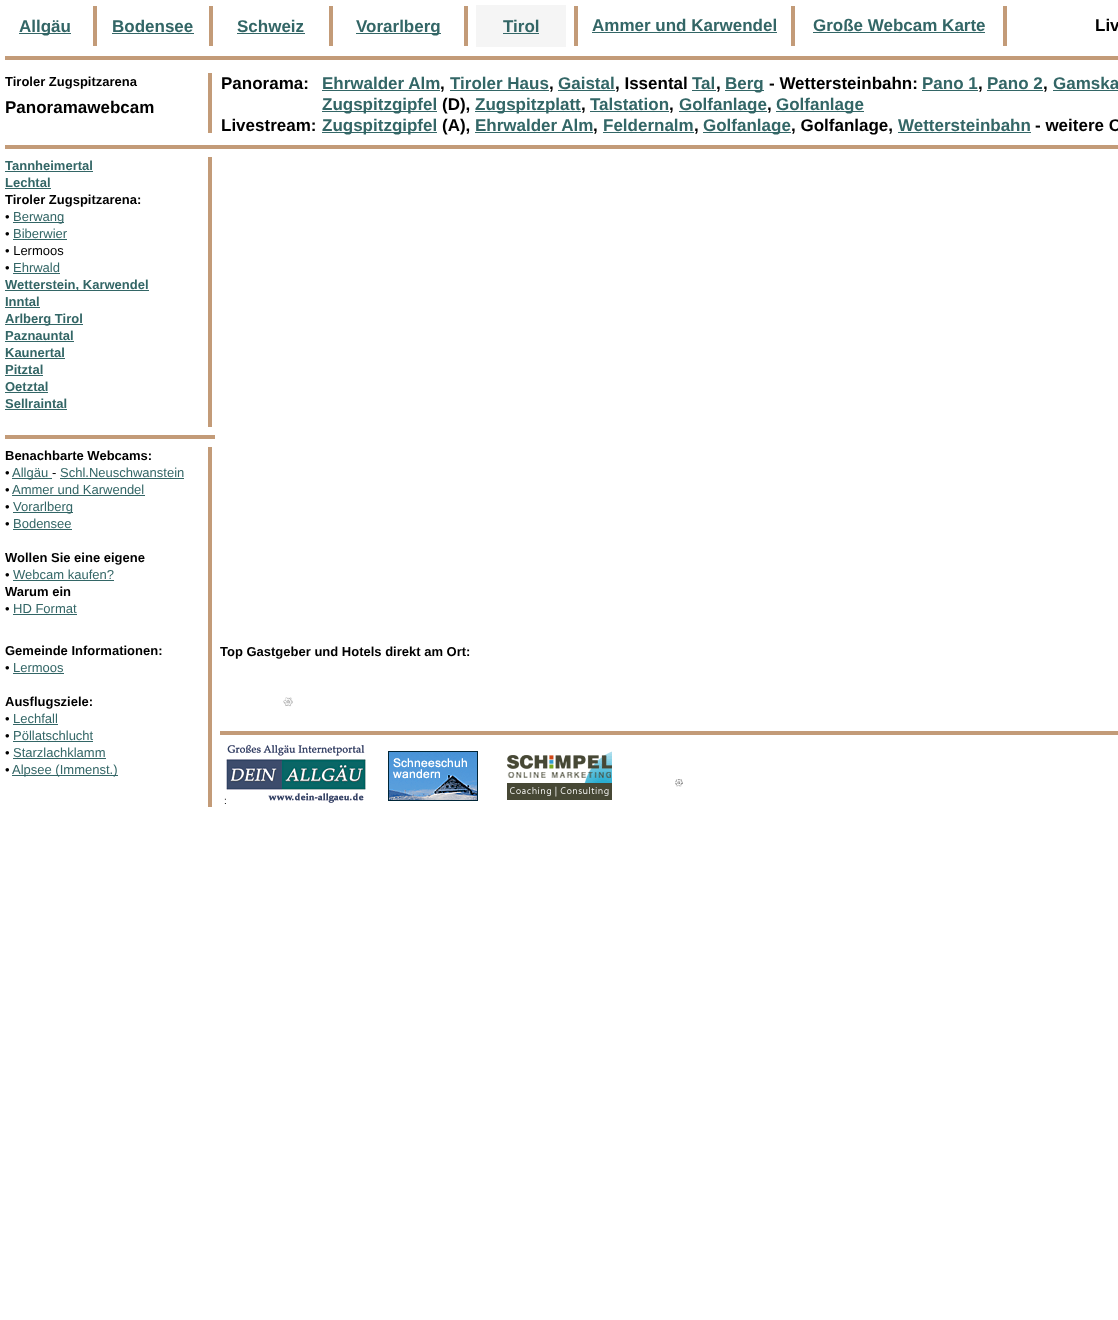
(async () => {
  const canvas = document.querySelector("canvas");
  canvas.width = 1118;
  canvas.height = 1320;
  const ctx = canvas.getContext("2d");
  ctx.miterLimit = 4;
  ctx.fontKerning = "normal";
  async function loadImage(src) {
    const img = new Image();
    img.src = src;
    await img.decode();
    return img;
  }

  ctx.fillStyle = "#ffffff";
  ctx.fillRect(0, 0, 1118, 1320);
  for (const [x, y, w, h, color] of [
    [19, 33, 52, 1, "#336666"],
    [93, 6, 4, 40, "#c39b78"],
    [112, 33, 82, 1, "#336666"],
    [209, 6, 4, 40, "#c39b78"],
    [237, 33, 68, 1, "#336666"],
    [329, 6, 4, 40, "#c39b78"],
    [356, 33, 85, 1, "#336666"],
    [464, 6, 4, 40, "#c39b78"],
    [476, 5, 90, 42, "#f5f5f5"],
    [503, 33, 36, 1, "#336666"],
    [574, 6, 4, 40, "#c39b78"],
    [592, 32, 185, 1, "#336666"],
    [791, 6, 4, 40, "#c39b78"],
    [813, 32, 172, 1, "#336666"],
    [1003, 6, 4, 40, "#c39b78"],
    [5, 56, 1113, 4, "#c39b78"],
    [208, 73, 4, 60, "#c39b78"],
    [322, 90, 118, 1, "#336666"],
    [450, 90, 99, 1, "#336666"],
    [558, 90, 57, 1, "#336666"],
    [692, 90, 24, 1, "#336666"],
    [725, 90, 39, 1, "#336666"],
    [922, 90, 56, 1, "#336666"],
    [987, 90, 56, 1, "#336666"],
    [1053, 90, 65, 1, "#336666"],
    [322, 111, 115, 1, "#336666"],
    [475, 111, 106, 1, "#336666"],
    [590, 111, 79, 1, "#336666"],
    [679, 111, 88, 1, "#336666"],
    [776, 111, 88, 1, "#336666"],
    [322, 132, 115, 1, "#336666"],
    [475, 132, 118, 1, "#336666"],
    [603, 132, 91, 1, "#336666"],
    [703, 132, 88, 1, "#336666"],
    [898, 132, 133, 1, "#336666"],
    [5, 145, 1113, 4, "#c39b78"],
    [5, 171, 88, 1, "#336666"],
    [5, 188, 46, 1, "#336666"],
    [13, 222, 51, 1, "#336666"],
    [13, 239, 54, 1, "#336666"],
    [13, 273, 47, 1, "#336666"],
    [5, 290, 144, 1, "#336666"],
    [5, 307, 35, 1, "#336666"],
    [5, 324, 78, 1, "#336666"],
    [5, 341, 69, 1, "#336666"],
    [5, 358, 60, 1, "#336666"],
    [5, 375, 38, 1, "#336666"],
    [5, 392, 43, 1, "#336666"],
    [5, 409, 62, 1, "#336666"],
    [208, 157, 4, 270, "#c39b78"],
    [5, 435, 210, 4, "#c39b78"],
    [12, 478, 40, 1, "#336666"],
    [60, 478, 124, 1, "#336666"],
    [12, 495, 133, 1, "#336666"],
    [13, 512, 60, 1, "#336666"],
    [13, 529, 59, 1, "#336666"],
    [13, 580, 101, 1, "#336666"],
    [13, 614, 64, 1, "#336666"],
    [208, 447, 4, 360, "#c39b78"],
    [13, 673, 51, 1, "#336666"],
    [13, 724, 45, 1, "#336666"],
    [13, 741, 80, 1, "#336666"],
    [13, 758, 93, 1, "#336666"],
    [12, 775, 106, 1, "#336666"],
  ]) {
    ctx.fillStyle = color;
    ctx.fillRect(x, y, w, h);
  }
  ctx.drawImage(await loadImage("img/1.png"), 283, 697, 10, 10);
  ctx.fillStyle = "#c39b78";
  ctx.fillRect(220, 731, 898, 4);
  ctx.drawImage(await loadImage("img/2.png"), 388, 751, 90, 50);
  ctx.drawImage(await loadImage("img/3.png"), 507, 751, 105, 49);
  ctx.drawImage(await loadImage("img/4.png"), 675, 779, 8, 8);
  ctx.drawImage(await loadImage("img/5.png"), 226, 744, 140, 59);
  ctx.font = "bold 17px Liberation Sans";
  ctx.fillStyle = "#336666";
  for (const [text, x, y] of [
    ["Allgäu", 19, 32],
    ["Bodensee", 112, 32],
    ["Schweiz", 237, 32],
    ["Vorarlberg", 356, 32],
    ["Tirol", 503, 32],
    ["Ammer und Karwendel", 592, 31],
    ["Große Webcam Karte", 813, 31],
  ]) {
    ctx.fillText(text, x, y);
  }
  ctx.fillStyle = "#000000";
  ctx.fillText("Liv", 1095, 31);
  ctx.font = "bold 13px Liberation Sans";
  ctx.fillText("Tiroler Zugspitzarena", 5, 86);
  ctx.font = "bold 17px Liberation Sans";
  ctx.fillText("Panorama:", 221, 89);
  ctx.fillStyle = "#336666";
  ctx.fillText("Ehrwalder Alm", 322, 89);
  ctx.fillStyle = "#000000";
  ctx.fillText(",", 440, 89);
  ctx.fillStyle = "#336666";
  ctx.fillText("Tiroler Haus", 450, 89);
  ctx.fillStyle = "#000000";
  ctx.fillText(",", 549, 89);
  ctx.fillStyle = "#336666";
  ctx.fillText("Gaistal", 558, 89);
  ctx.fillStyle = "#000000";
  ctx.fillText(", Issental", 615, 89);
  ctx.fillStyle = "#336666";
  ctx.fillText("Tal", 692, 89);
  ctx.fillStyle = "#000000";
  ctx.fillText(",", 716, 89);
  ctx.fillStyle = "#336666";
  ctx.fillText("Berg", 725, 89);
  ctx.fillStyle = "#000000";
  ctx.fillText("- Wettersteinbahn:", 769, 89);
  ctx.fillStyle = "#336666";
  ctx.fillText("Pano 1", 922, 89);
  ctx.fillStyle = "#000000";
  ctx.fillText(",", 978, 89);
  ctx.fillStyle = "#336666";
  ctx.fillText("Pano 2", 987, 89);
  ctx.fillStyle = "#000000";
  ctx.fillText(",", 1043, 89);
  ctx.fillStyle = "#336666";
  ctx.fillText("Gamska", 1053, 89);
  ctx.fillText("Zugspitzgipfel", 322, 110);
  ctx.fillStyle = "#000000";
  ctx.fillText("(D),", 442, 110);
  ctx.fillStyle = "#336666";
  ctx.fillText("Zugspitzplatt", 475, 110);
  ctx.fillStyle = "#000000";
  ctx.fillText(",", 581, 110);
  ctx.fillStyle = "#336666";
  ctx.fillText("Talstation", 590, 110);
  ctx.fillStyle = "#000000";
  ctx.fillText(",", 669, 110);
  ctx.fillStyle = "#336666";
  ctx.fillText("Golfanlage", 679, 110);
  ctx.fillStyle = "#000000";
  ctx.fillText(",", 767, 110);
  ctx.fillStyle = "#336666";
  ctx.fillText("Golfanlage", 776, 110);
  ctx.fillStyle = "#000000";
  ctx.fillText("Livestream:", 221, 131);
  ctx.fillStyle = "#336666";
  ctx.fillText("Zugspitzgipfel", 322, 131);
  ctx.fillStyle = "#000000";
  ctx.fillText("(A),", 442, 131);
  ctx.fillStyle = "#336666";
  ctx.fillText("Ehrwalder Alm", 475, 131);
  ctx.fillStyle = "#000000";
  ctx.fillText(",", 593, 131);
  ctx.fillStyle = "#336666";
  ctx.fillText("Feldernalm", 603, 131);
  ctx.fillStyle = "#000000";
  ctx.fillText(",", 694, 131);
  ctx.fillStyle = "#336666";
  ctx.fillText("Golfanlage", 703, 131);
  ctx.fillStyle = "#000000";
  ctx.fillText(", Golfanlage,", 791, 131);
  ctx.fillStyle = "#336666";
  ctx.fillText("Wettersteinbahn", 898, 131);
  ctx.fillStyle = "#000000";
  ctx.fillText("- weitere C", 1035, 131);
  ctx.fillText("Panoramawebcam", 5, 113);
  ctx.font = "bold 13px Liberation Sans";
  ctx.fillStyle = "#336666";
  ctx.fillText("Tannheimertal", 5, 170);
  ctx.fillText("Lechtal", 5, 187);
  ctx.fillStyle = "#000000";
  ctx.fillText("Tiroler Zugspitzarena:", 5, 204);
  ctx.font = "13px Liberation Sans";
  ctx.fillText("•", 5, 221);
  ctx.fillStyle = "#336666";
  ctx.fillText("Berwang", 13, 221);
  ctx.fillStyle = "#000000";
  ctx.fillText("•", 5, 238);
  ctx.fillStyle = "#336666";
  ctx.fillText("Biberwier", 13, 238);
  ctx.fillStyle = "#000000";
  ctx.fillText("• Lermoos", 5, 255);
  ctx.fillText("•", 5, 272);
  ctx.fillStyle = "#336666";
  ctx.fillText("Ehrwald", 13, 272);
  ctx.font = "bold 13px Liberation Sans";
  for (const [text, x, y] of [
    ["Wetterstein, Karwendel", 5, 289],
    ["Inntal", 5, 306],
    ["Arlberg Tirol", 5, 323],
    ["Paznauntal", 5, 340],
    ["Kaunertal", 5, 357],
    ["Pitztal", 5, 374],
    ["Oetztal", 5, 391],
    ["Sellraintal", 5, 408],
  ]) {
    ctx.fillText(text, x, y);
  }
  ctx.fillStyle = "#000000";
  ctx.fillText("Benachbarte Webcams:", 5, 460);
  ctx.font = "13px Liberation Sans";
  ctx.fillText("•", 5, 477);
  ctx.fillStyle = "#336666";
  ctx.fillText("Allgäu", 12, 477);
  ctx.fillStyle = "#000000";
  ctx.fillText("-", 52, 477);
  ctx.fillStyle = "#336666";
  ctx.fillText("Schl.Neuschwanstein", 60, 477);
  ctx.fillStyle = "#000000";
  ctx.fillText("•", 5, 494);
  ctx.fillStyle = "#336666";
  ctx.fillText("Ammer und Karwendel", 12, 494);
  ctx.fillStyle = "#000000";
  ctx.fillText("•", 5, 511);
  ctx.fillStyle = "#336666";
  ctx.fillText("Vorarlberg", 13, 511);
  ctx.fillStyle = "#000000";
  ctx.fillText("•", 5, 528);
  ctx.fillStyle = "#336666";
  ctx.fillText("Bodensee", 13, 528);
  ctx.font = "bold 13px Liberation Sans";
  ctx.fillStyle = "#000000";
  ctx.fillText("Wollen Sie eine eigene", 5, 562);
  ctx.font = "13px Liberation Sans";
  ctx.fillText("•", 5, 579);
  ctx.fillStyle = "#336666";
  ctx.fillText("Webcam kaufen?", 13, 579);
  ctx.font = "bold 13px Liberation Sans";
  ctx.fillStyle = "#000000";
  ctx.fillText("Warum ein", 5, 596);
  ctx.font = "13px Liberation Sans";
  ctx.fillText("•", 5, 613);
  ctx.fillStyle = "#336666";
  ctx.fillText("HD Format", 13, 613);
  ctx.font = "bold 13px Liberation Sans";
  ctx.fillStyle = "#000000";
  ctx.fillText("Gemeinde Informationen:", 5, 655);
  ctx.font = "13px Liberation Sans";
  ctx.fillText("•", 5, 672);
  ctx.fillStyle = "#336666";
  ctx.fillText("Lermoos", 13, 672);
  ctx.font = "bold 13px Liberation Sans";
  ctx.fillStyle = "#000000";
  ctx.fillText("Ausflugsziele:", 5, 706);
  ctx.font = "13px Liberation Sans";
  ctx.fillText("•", 5, 723);
  ctx.fillStyle = "#336666";
  ctx.fillText("Lechfall", 13, 723);
  ctx.fillStyle = "#000000";
  ctx.fillText("•", 5, 740);
  ctx.fillStyle = "#336666";
  ctx.fillText("Pöllatschlucht", 13, 740);
  ctx.fillStyle = "#000000";
  ctx.fillText("•", 5, 757);
  ctx.fillStyle = "#336666";
  ctx.fillText("Starzlachklamm", 13, 757);
  ctx.fillStyle = "#000000";
  ctx.fillText("•", 5, 774);
  ctx.fillStyle = "#336666";
  ctx.fillText("Alpsee (Immenst.)", 12, 774);
  ctx.font = "bold 13px Liberation Sans";
  ctx.fillStyle = "#000000";
  ctx.fillText("Top Gastgeber und Hotels direkt am Ort:", 220, 656);
  ctx.font = "10px Liberation Sans";
  ctx.fillText(":", 224, 804);
})();
